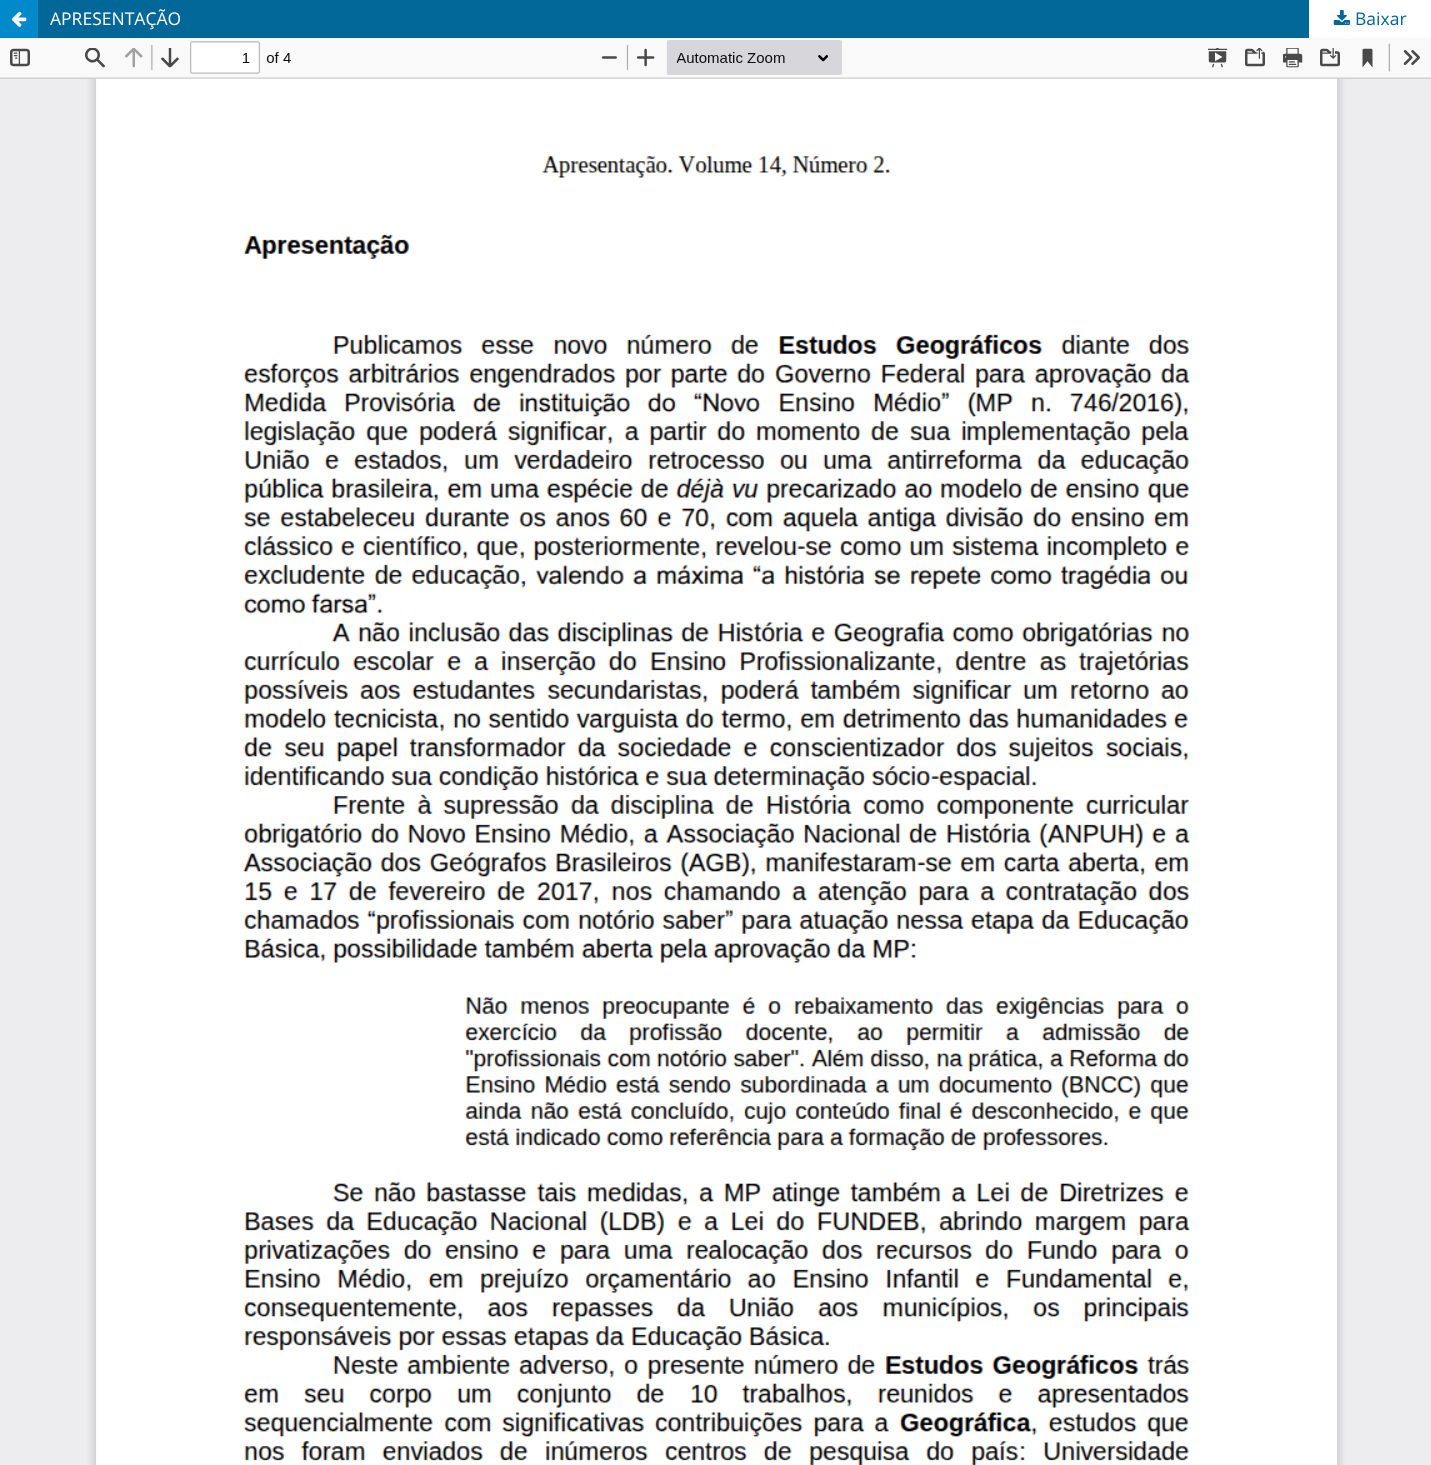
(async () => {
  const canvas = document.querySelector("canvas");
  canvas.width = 1431;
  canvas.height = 1465;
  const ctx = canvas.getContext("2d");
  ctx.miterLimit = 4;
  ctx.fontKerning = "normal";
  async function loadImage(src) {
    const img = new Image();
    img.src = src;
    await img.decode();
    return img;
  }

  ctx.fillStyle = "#ffffff";
  ctx.fillRect(0, 0, 1431, 1465);
  ctx.fillStyle = "#006798";
  ctx.fillRect(38, 0, 1271, 38);
  ctx.fillStyle = "#008acb";
  ctx.fillRect(0, 0, 38, 38);
  ctx.drawImage(await loadImage("img/1.png"), 11, 11, 16, 16);
  ctx.drawImage(await loadImage("img/2.png"), 1333, 10, 17, 15);
  ctx.drawImage(await loadImage("img/3.png"), 0, 38, 1431, 1427);
  ctx.font = "17.5px Open Sans";
  ctx.fillStyle = "#ffffff";
  ctx.fillText("APRESENTAÇÃO", 50, 25);
  ctx.fillStyle = "#006798";
  ctx.fillText("Baixar", 1355, 25);
})();
